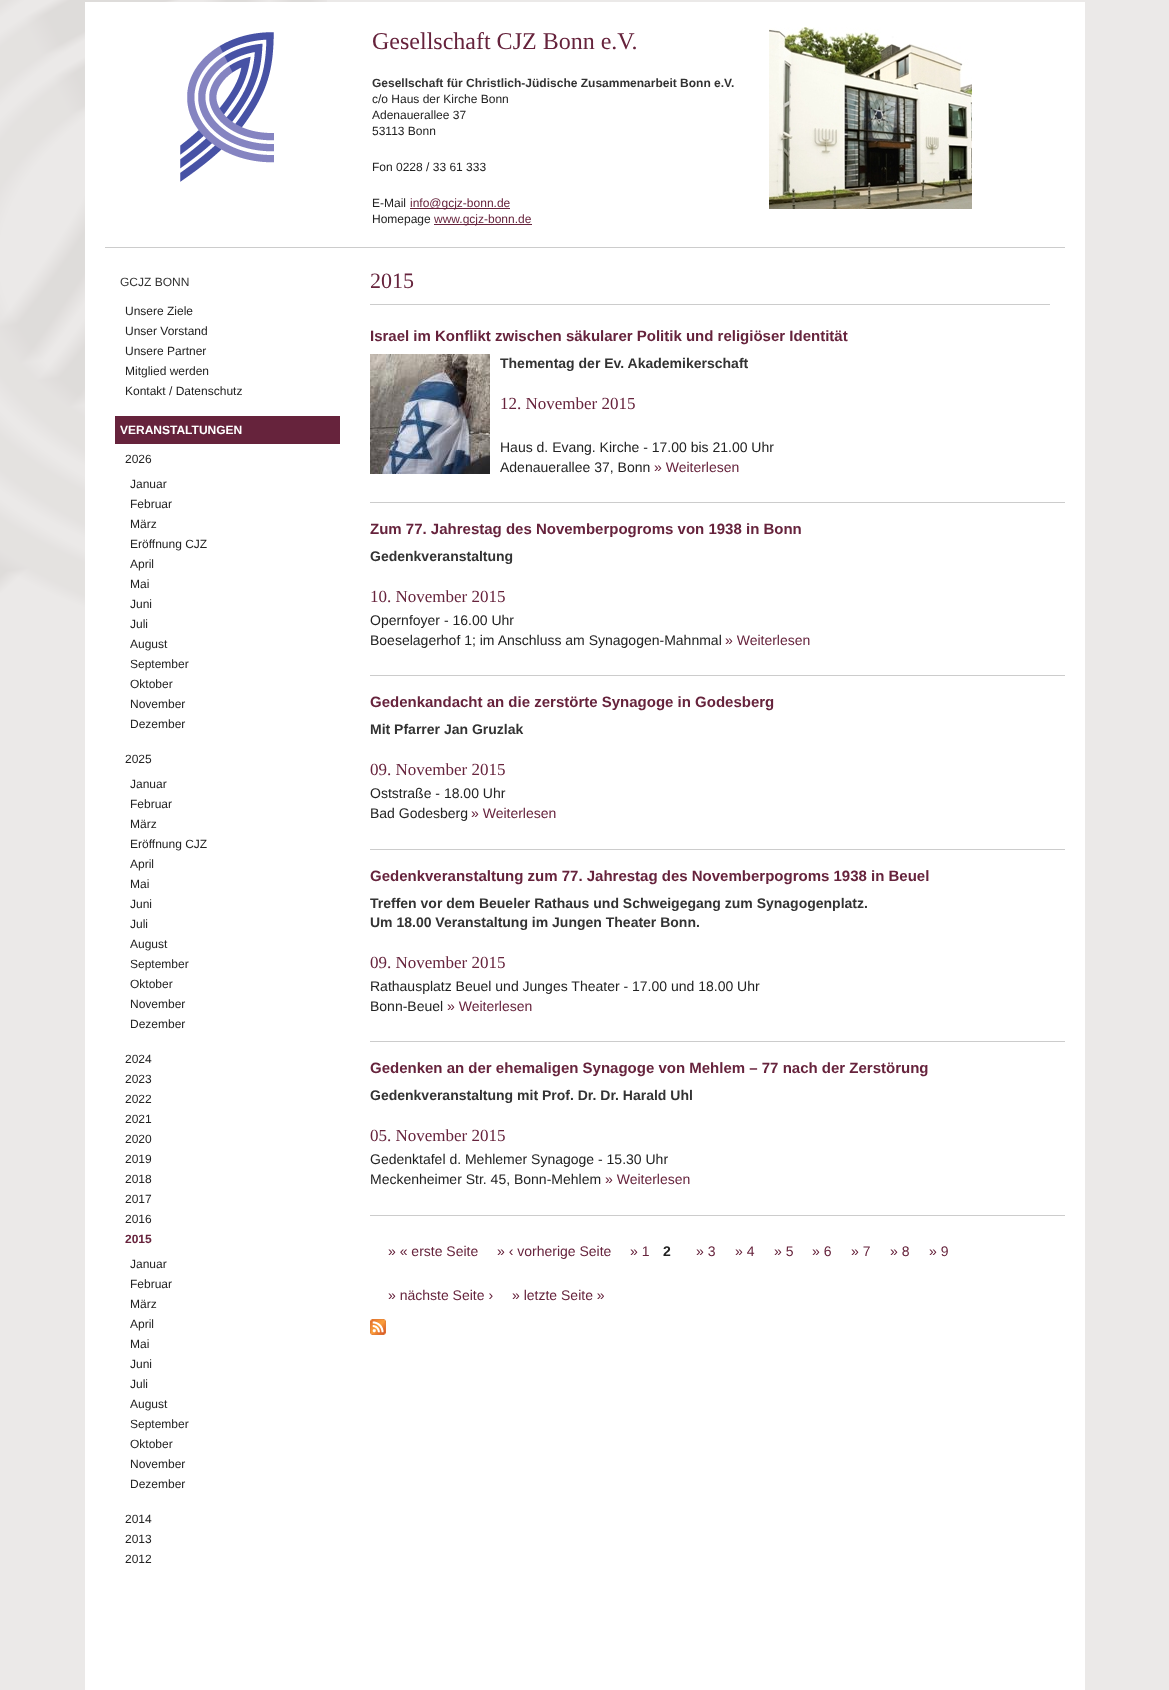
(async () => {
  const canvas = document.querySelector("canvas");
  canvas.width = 1169;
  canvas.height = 1690;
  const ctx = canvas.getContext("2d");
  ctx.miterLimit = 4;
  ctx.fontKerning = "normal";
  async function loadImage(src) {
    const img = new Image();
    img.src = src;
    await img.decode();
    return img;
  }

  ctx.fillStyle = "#ebe9e8";
  ctx.fillRect(0, 0, 1169, 1690);
  ctx.drawImage(await loadImage("img/1.png"), 0, 0, 327, 645);
  ctx.fillStyle = "#ffffff";
  ctx.fillRect(85, 2, 1000, 1688);
  ctx.fillStyle = "#cccccc";
  ctx.fillRect(105, 247, 960, 1);
  ctx.drawImage(await loadImage("img/2.png"), 180, 32, 94, 150);
  ctx.drawImage(await loadImage("img/3.png"), 769, 27, 203, 182);
  for (const [x, y, w, h, color] of [
    [410, 208, 100, 1, "#66233c"],
    [434, 224, 98, 1, "#66233c"],
    [115, 416, 225, 28, "#66233c"],
    [370, 304, 680, 1, "#cccccc"],
    [370, 502, 695, 1, "#cccccc"],
  ]) {
    ctx.fillStyle = color;
    ctx.fillRect(x, y, w, h);
  }
  ctx.drawImage(await loadImage("img/4.png"), 370, 354, 120, 120);
  for (const [x, y, w, h, color] of [
    [370, 675, 695, 1, "#cccccc"],
    [370, 849, 695, 1, "#cccccc"],
    [370, 1041, 695, 1, "#cccccc"],
    [370, 1215, 695, 1, "#cccccc"],
  ]) {
    ctx.fillStyle = color;
    ctx.fillRect(x, y, w, h);
  }
  ctx.drawImage(await loadImage("img/5.png"), 370, 1319, 16, 16);
  ctx.font = "24px Liberation Serif";
  ctx.fillStyle = "#66233c";
  ctx.fillText("Gesellschaft CJZ Bonn e.V.", 372, 49);
  ctx.font = "bold 12px Liberation Sans";
  ctx.fillStyle = "#333333";
  ctx.fillText("Gesellschaft für Christlich-Jüdische Zusammenarbeit Bonn e.V.", 372, 87);
  ctx.font = "12px Liberation Sans";
  ctx.fillStyle = "#222222";
  for (const [text, x, y] of [
    ["c/o Haus der Kirche Bonn", 372, 103],
    ["Adenauerallee 37", 372, 119],
    ["53113 Bonn", 372, 135],
    ["Fon 0228 / 33 61 333", 372, 171],
    ["E-Mail", 372, 207],
  ]) {
    ctx.fillText(text, x, y);
  }
  ctx.fillStyle = "#66233c";
  ctx.fillText("info@gcjz-bonn.de", 410, 207);
  ctx.fillStyle = "#222222";
  ctx.fillText("Homepage", 372, 223);
  ctx.fillStyle = "#66233c";
  ctx.fillText("www.gcjz-bonn.de", 434, 223);
  ctx.fillStyle = "#333333";
  ctx.fillText("GCJZ BONN", 120, 286);
  ctx.fillStyle = "#222222";
  for (const [text, x, y] of [
    ["Unsere Ziele", 125, 315],
    ["Unser Vorstand", 125, 335],
    ["Unsere Partner", 125, 355],
    ["Mitglied werden", 125, 375],
    ["Kontakt / Datenschutz", 125, 395],
  ]) {
    ctx.fillText(text, x, y);
  }
  ctx.font = "bold 12px Liberation Sans";
  ctx.fillStyle = "#ffffff";
  ctx.fillText("VERANSTALTUNGEN", 120, 434);
  ctx.font = "12px Liberation Sans";
  ctx.fillStyle = "#222222";
  for (const [text, x, y] of [
    ["2026", 125, 463],
    ["Januar", 130, 488],
    ["Februar", 130, 508],
    ["März", 130, 528],
    ["Eröffnung CJZ", 130, 548],
    ["April", 130, 568],
    ["Mai", 130, 588],
    ["Juni", 130, 608],
    ["Juli", 130, 628],
    ["August", 130, 648],
    ["September", 130, 668],
    ["Oktober", 130, 688],
    ["November", 130, 708],
    ["Dezember", 130, 728],
    ["2025", 125, 763],
    ["Januar", 130, 788],
    ["Februar", 130, 808],
    ["März", 130, 828],
    ["Eröffnung CJZ", 130, 848],
    ["April", 130, 868],
    ["Mai", 130, 888],
    ["Juni", 130, 908],
    ["Juli", 130, 928],
    ["August", 130, 948],
    ["September", 130, 968],
    ["Oktober", 130, 988],
    ["November", 130, 1008],
    ["Dezember", 130, 1028],
    ["2024", 125, 1063],
    ["2023", 125, 1083],
    ["2022", 125, 1103],
    ["2021", 125, 1123],
    ["2020", 125, 1143],
    ["2019", 125, 1163],
    ["2018", 125, 1183],
    ["2017", 125, 1203],
    ["2016", 125, 1223],
  ]) {
    ctx.fillText(text, x, y);
  }
  ctx.font = "bold 12px Liberation Sans";
  ctx.fillStyle = "#66233c";
  ctx.fillText("2015", 125, 1243);
  ctx.font = "12px Liberation Sans";
  ctx.fillStyle = "#222222";
  for (const [text, x, y] of [
    ["Januar", 130, 1268],
    ["Februar", 130, 1288],
    ["März", 130, 1308],
    ["April", 130, 1328],
    ["Mai", 130, 1348],
    ["Juni", 130, 1368],
    ["Juli", 130, 1388],
    ["August", 130, 1408],
    ["September", 130, 1428],
    ["Oktober", 130, 1448],
    ["November", 130, 1468],
    ["Dezember", 130, 1488],
    ["2014", 125, 1523],
    ["2013", 125, 1543],
    ["2012", 125, 1563],
  ]) {
    ctx.fillText(text, x, y);
  }
  ctx.font = "22px Liberation Serif";
  ctx.fillStyle = "#66233c";
  ctx.fillText("2015", 370, 288);
  ctx.font = "bold 15px Liberation Sans";
  ctx.fillText("Israel im Konflikt zwischen säkularer Politik und religiöser Identität", 370, 341);
  ctx.font = "bold 14px Liberation Sans";
  ctx.fillStyle = "#333333";
  ctx.fillText("Thementag der Ev. Akademikerschaft", 500, 368);
  ctx.font = "17px Liberation Serif";
  ctx.fillStyle = "#66233c";
  ctx.fillText("12. November 2015", 500, 409);
  ctx.font = "14px Liberation Sans";
  ctx.fillStyle = "#222222";
  ctx.fillText("Haus d. Evang. Kirche - 17.00 bis 21.00 Uhr", 500, 452);
  ctx.fillText("Adenauerallee 37, Bonn", 500, 472);
  ctx.fillStyle = "#66233c";
  ctx.fillText("» Weiterlesen", 654, 472);
  ctx.font = "bold 15px Liberation Sans";
  ctx.fillText("Zum 77. Jahrestag des Novemberpogroms von 1938 in Bonn", 370, 534);
  ctx.font = "bold 14px Liberation Sans";
  ctx.fillStyle = "#333333";
  ctx.fillText("Gedenkveranstaltung", 370, 561);
  ctx.font = "17px Liberation Serif";
  ctx.fillStyle = "#66233c";
  ctx.fillText("10. November 2015", 370, 602);
  ctx.font = "14px Liberation Sans";
  ctx.fillStyle = "#222222";
  ctx.fillText("Opernfoyer - 16.00 Uhr", 370, 625);
  ctx.fillText("Boeselagerhof 1; im Anschluss am Synagogen-Mahnmal", 370, 645);
  ctx.fillStyle = "#66233c";
  ctx.fillText("» Weiterlesen", 725, 645);
  ctx.font = "bold 15px Liberation Sans";
  ctx.fillText("Gedenkandacht an die zerstörte Synagoge in Godesberg", 370, 707);
  ctx.font = "bold 14px Liberation Sans";
  ctx.fillStyle = "#333333";
  ctx.fillText("Mit Pfarrer Jan Gruzlak", 370, 734);
  ctx.font = "17px Liberation Serif";
  ctx.fillStyle = "#66233c";
  ctx.fillText("09. November 2015", 370, 775);
  ctx.font = "14px Liberation Sans";
  ctx.fillStyle = "#222222";
  ctx.fillText("Oststraße - 18.00 Uhr", 370, 798);
  ctx.fillText("Bad Godesberg", 370, 818);
  ctx.fillStyle = "#66233c";
  ctx.fillText("» Weiterlesen", 471, 818);
  ctx.font = "bold 15px Liberation Sans";
  ctx.fillText("Gedenkveranstaltung zum 77. Jahrestag des Novemberpogroms 1938 in Beuel", 370, 881);
  ctx.font = "bold 14px Liberation Sans";
  ctx.fillStyle = "#333333";
  ctx.fillText("Treffen vor dem Beueler Rathaus und Schweigegang zum Synagogenplatz.", 370, 908);
  ctx.fillText("Um 18.00 Veranstaltung im Jungen Theater Bonn.", 370, 927);
  ctx.font = "17px Liberation Serif";
  ctx.fillStyle = "#66233c";
  ctx.fillText("09. November 2015", 370, 968);
  ctx.font = "14px Liberation Sans";
  ctx.fillStyle = "#222222";
  ctx.fillText("Rathausplatz Beuel und Junges Theater - 17.00 und 18.00 Uhr", 370, 991);
  ctx.fillText("Bonn-Beuel", 370, 1011);
  ctx.fillStyle = "#66233c";
  ctx.fillText("» Weiterlesen", 447, 1011);
  ctx.font = "bold 15px Liberation Sans";
  ctx.fillText("Gedenken an der ehemaligen Synagoge von Mehlem – 77 nach der Zerstörung", 370, 1073);
  ctx.font = "bold 14px Liberation Sans";
  ctx.fillStyle = "#333333";
  ctx.fillText("Gedenkveranstaltung mit Prof. Dr. Dr. Harald Uhl", 370, 1100);
  ctx.font = "17px Liberation Serif";
  ctx.fillStyle = "#66233c";
  ctx.fillText("05. November 2015", 370, 1141);
  ctx.font = "14px Liberation Sans";
  ctx.fillStyle = "#222222";
  ctx.fillText("Gedenktafel d. Mehlemer Synagoge - 15.30 Uhr", 370, 1164);
  ctx.fillText("Meckenheimer Str. 45, Bonn-Mehlem", 370, 1184);
  ctx.fillStyle = "#66233c";
  for (const [text, x, y] of [
    ["» Weiterlesen", 605, 1184],
    ["» « erste Seite", 388, 1256],
    ["» ‹ vorherige Seite", 497, 1256],
    ["» 1", 630, 1256],
  ]) {
    ctx.fillText(text, x, y);
  }
  ctx.font = "bold 14px Liberation Sans";
  ctx.fillStyle = "#222222";
  ctx.fillText("2", 663, 1256);
  ctx.font = "14px Liberation Sans";
  ctx.fillStyle = "#66233c";
  for (const [text, x, y] of [
    ["» 3", 696, 1256],
    ["» 4", 735, 1256],
    ["» 5", 774, 1256],
    ["» 6", 812, 1256],
    ["» 7", 851, 1256],
    ["» 8", 890, 1256],
    ["» 9", 929, 1256],
    ["» nächste Seite ›", 388, 1300],
    ["» letzte Seite »", 512, 1300],
  ]) {
    ctx.fillText(text, x, y);
  }
})();
